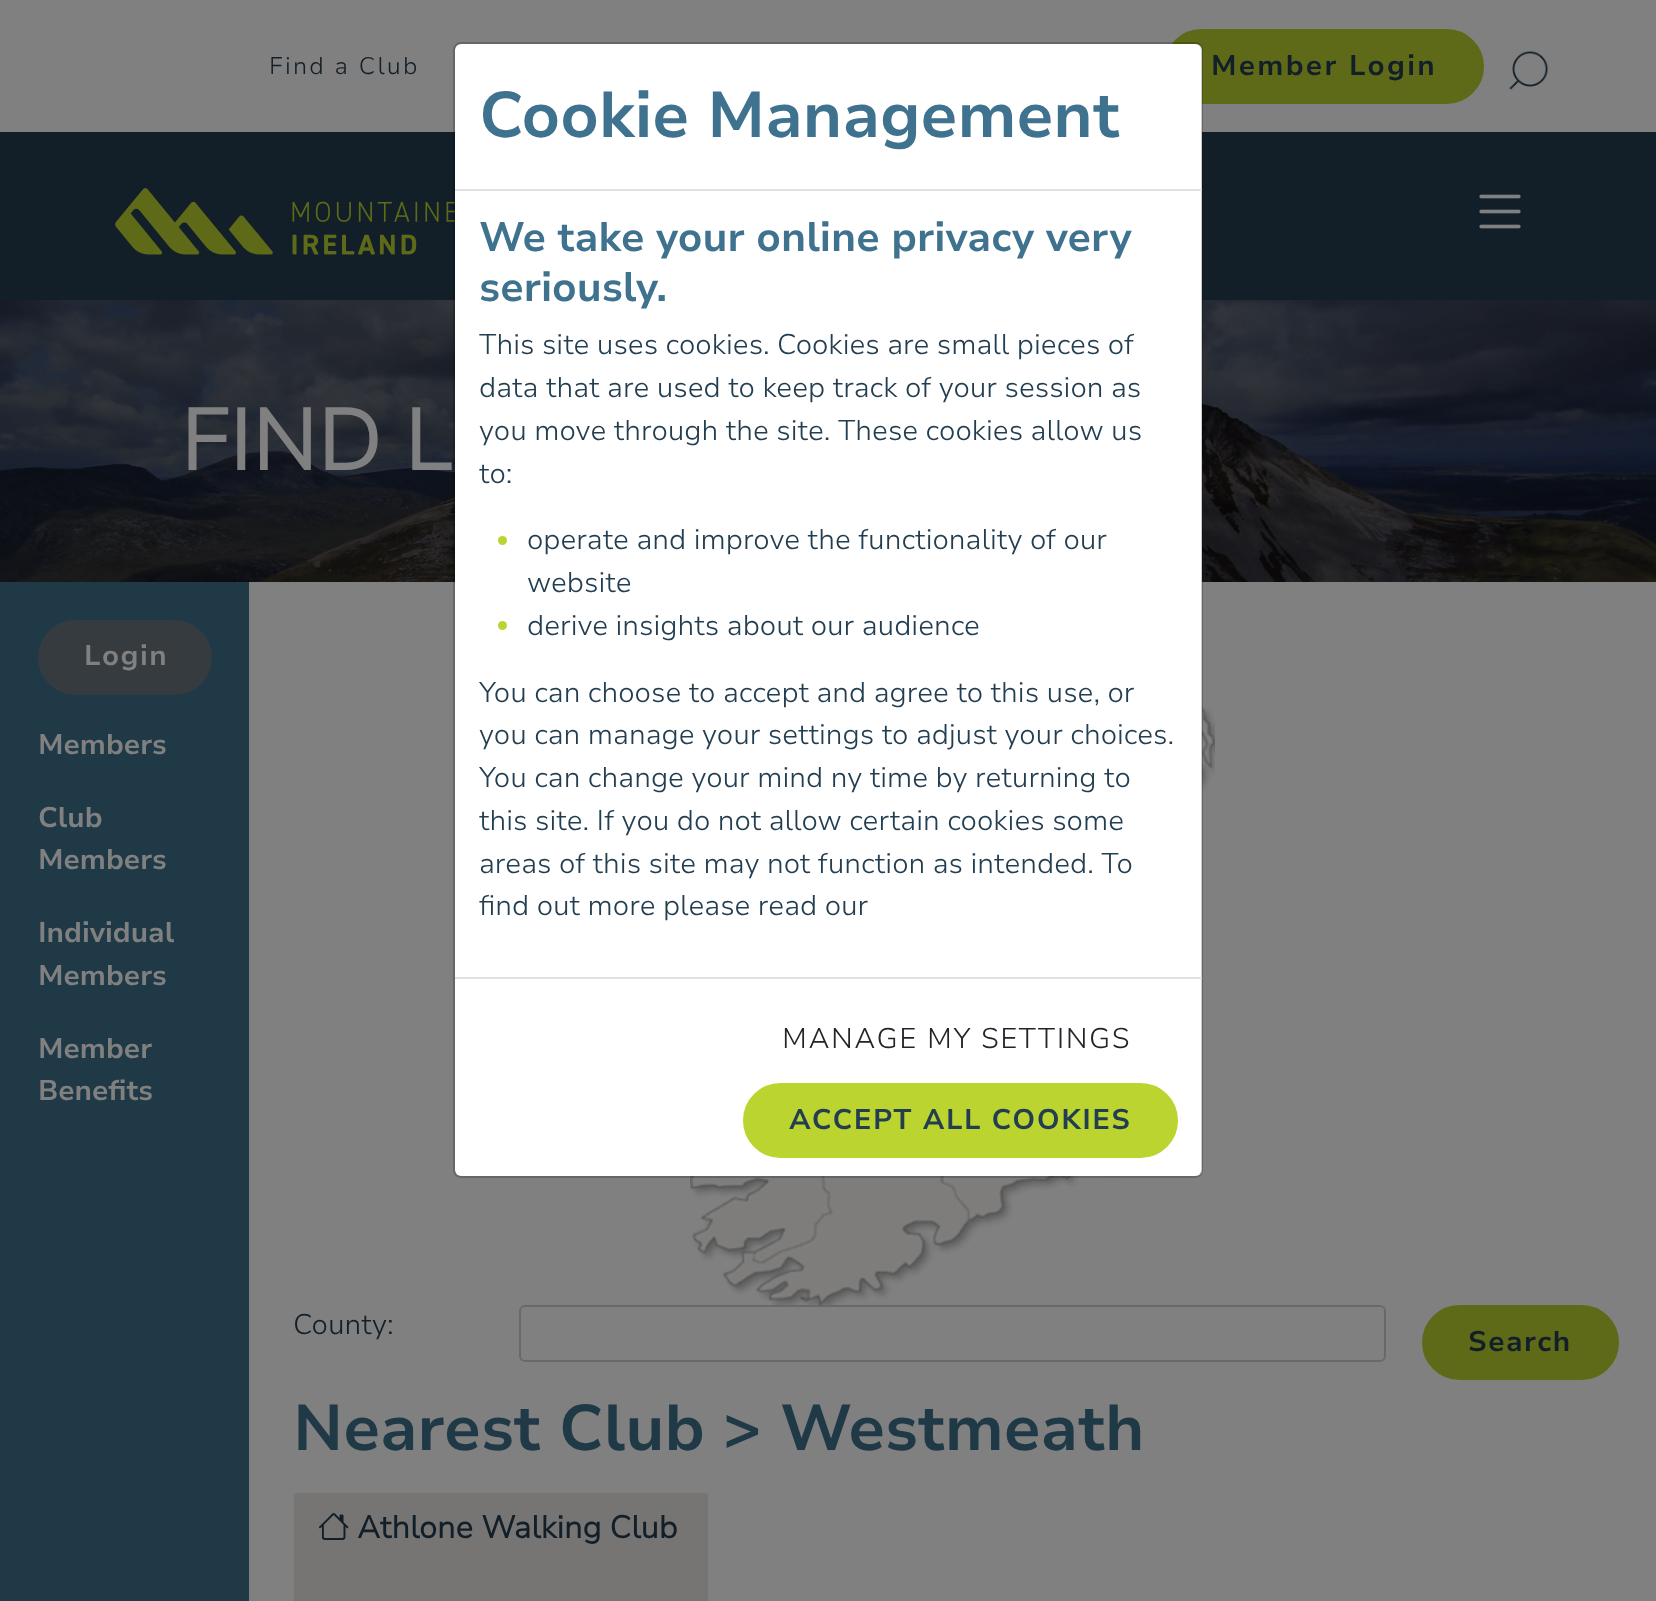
(async () => {
  const canvas = document.querySelector("canvas");
  canvas.width = 1656;
  canvas.height = 1601;
  const ctx = canvas.getContext("2d");
  ctx.miterLimit = 4;
  ctx.fontKerning = "normal";
  async function loadImage(src) {
    const img = new Image();
    img.src = src;
    await img.decode();
    return img;
  }
  let path;

  ctx.fillStyle = "#808080";
  ctx.fillRect(0, 0, 1656, 1601);
  ctx.fillStyle = "#5e6a18";
  ctx.beginPath();
  ctx.roundRect(1165, 30, 318, 73, 36.5);
  ctx.fill();
  ctx.strokeStyle = "#5e6a18";
  ctx.lineWidth = 2;
  ctx.stroke();
  ctx.drawImage(await loadImage("img/1.png"), 1509, 51, 39, 39);
  ctx.fillStyle = "#121f29";
  ctx.fillRect(0, 132, 1656, 168);
  ctx.drawImage(await loadImage("img/4.png"), 0, 300, 1656, 282);
  ctx.drawImage(await loadImage("img/5.png"), 690, 582, 525, 723);
  ctx.fillStyle = "#ffffff";
  ctx.beginPath();
  ctx.roundRect(455, 44, 747, 1132, 6);
  ctx.fill();
  ctx.drawImage(await loadImage("img/2.png"), 115, 188, 340, 67);
  ctx.beginPath();
  ctx.roundRect(454, 43, 748, 1134, 7);
  ctx.strokeStyle = "rgba(0, 0, 0, 0.2)";
  ctx.stroke();
  ctx.fillStyle = "#dee2e6";
  ctx.fillRect(455, 189, 747, 2);
  ctx.fillStyle = "#bcd430";
  ctx.beginPath();
  ctx.arc(502.5, 540.5, 4.5, 0, Math.PI * 2);
  ctx.fill();
  ctx.beginPath();
  ctx.arc(502.5, 625.5, 4.5, 0, Math.PI * 2);
  ctx.fill();
  ctx.fillStyle = "#dee2e6";
  ctx.fillRect(455, 977, 747, 2);
  ctx.fillStyle = "#bcd430";
  ctx.beginPath();
  ctx.roundRect(744, 1084, 433, 73, 36.5);
  ctx.fill();
  ctx.strokeStyle = "#bcd430";
  ctx.stroke();
  ctx.drawImage(await loadImage("img/3.png"), 1479, 194, 42, 35);
  ctx.fillStyle = "#203947";
  ctx.fillRect(0, 582, 249, 1019);
  ctx.fillStyle = "#363b3f";
  ctx.beginPath();
  ctx.roundRect(38, 620, 174, 75, 37.5);
  ctx.fill();
  ctx.beginPath();
  ctx.roundRect(520, 1306, 865, 55, 5);
  ctx.strokeStyle = "#676a6d";
  ctx.stroke();
  ctx.fillStyle = "#5e6a18";
  ctx.beginPath();
  ctx.roundRect(1423, 1306, 195, 73, 36.5);
  ctx.fill();
  ctx.strokeStyle = "#5e6a18";
  ctx.stroke();
  ctx.fillStyle = "#7a7978";
  ctx.fillRect(294, 1493, 414, 5);
  ctx.fillStyle = "#767574";
  path = new Path2D("M299 1493H703C706 1493 708 1495 708 1498V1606H294V1498C294 1495 296 1493 299 1493Z");
  ctx.fill(path);
  ctx.drawImage(await loadImage("img/6.png"), 319, 1513, 30, 27);
  ctx.letterSpacing = "2.25px";
  ctx.font = "300 24px Nunito Sans";
  ctx.fillStyle = "#121f29";
  ctx.fillText("Find a Club", 269, 74);
  ctx.font = "bold 28.5px Nunito Sans";
  ctx.fillText("Member Login", 1211, 75);
  ctx.letterSpacing = "0px";
  ctx.font = "bold 64.5px Nunito Sans";
  ctx.fillStyle = "#3f728e";
  ctx.fillText("Cookie Management", 479, 137);
  ctx.font = "bold 41.1px Nunito Sans";
  ctx.fillText("We take your online privacy very", 479, 251);
  ctx.fillText("seriously.", 479, 301);
  ctx.font = "300 28.5px Nunito Sans";
  ctx.fillStyle = "#233e51";
  for (const [text, x, y] of [
    ["This site uses cookies. Cookies are small pieces of", 479, 354],
    ["data that are used to keep track of your session as", 479, 397],
    ["you move through the site. These cookies allow us", 479, 440],
    ["to:", 479, 483],
    ["operate and improve the functionality of our", 527, 549],
    ["website", 527, 592],
    ["derive insights about our audience", 527, 635],
    ["You can choose to accept and agree to this use, or", 479, 702],
    ["you can manage your settings to adjust your choices.", 479, 744],
    ["You can change your mind ny time by returning to", 479, 787],
    ["this site. If you do not allow certain cookies some", 479, 830],
    ["areas of this site may not function as intended. To", 479, 873],
    ["find out more please read our", 479, 915],
  ]) {
    ctx.fillText(text, x, y);
  }
  ctx.letterSpacing = "1.5px";
  ctx.fillStyle = "#212529";
  ctx.fillText("MANAGE MY SETTINGS", 782, 1048);
  ctx.font = "bold 28.5px Nunito Sans";
  ctx.fillStyle = "#233e51";
  ctx.fillText("ACCEPT ALL COOKIES", 789, 1129);
  ctx.letterSpacing = "0px";
  ctx.font = "bold 85.5px 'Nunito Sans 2'";
  ctx.fillStyle = "#808080";
  ctx.fillText("FIND L", 180, 470);
  ctx.letterSpacing = "1.5px";
  ctx.font = "bold 28.5px Nunito Sans";
  ctx.fillText("Login", 84, 665);
  ctx.letterSpacing = "0px";
  for (const [text, x, y] of [
    ["Members", 38, 754],
    ["Club", 38, 827],
    ["Members", 38, 869],
    ["Individual", 38, 942],
    ["Members", 38, 985],
    ["Member", 38, 1058],
    ["Benefits", 38, 1100],
  ]) {
    ctx.fillText(text, x, y);
  }
  ctx.font = "300 28.5px Nunito Sans";
  ctx.fillStyle = "#121f29";
  ctx.fillText("County:", 293, 1334);
  ctx.letterSpacing = "1.5px";
  ctx.font = "bold 28.5px Nunito Sans";
  ctx.fillText("Search", 1468, 1351);
  ctx.letterSpacing = "0px";
  ctx.font = "bold 64.5px Nunito Sans";
  ctx.fillStyle = "#203947";
  ctx.fillText("Nearest Club > Westmeath", 293, 1450);
  ctx.font = "bold 31.4px 'Nunito Sans 2'";
  ctx.fillStyle = "#121f29";
  ctx.fillText("Athlone Walking Club", 357, 1538);
})();
